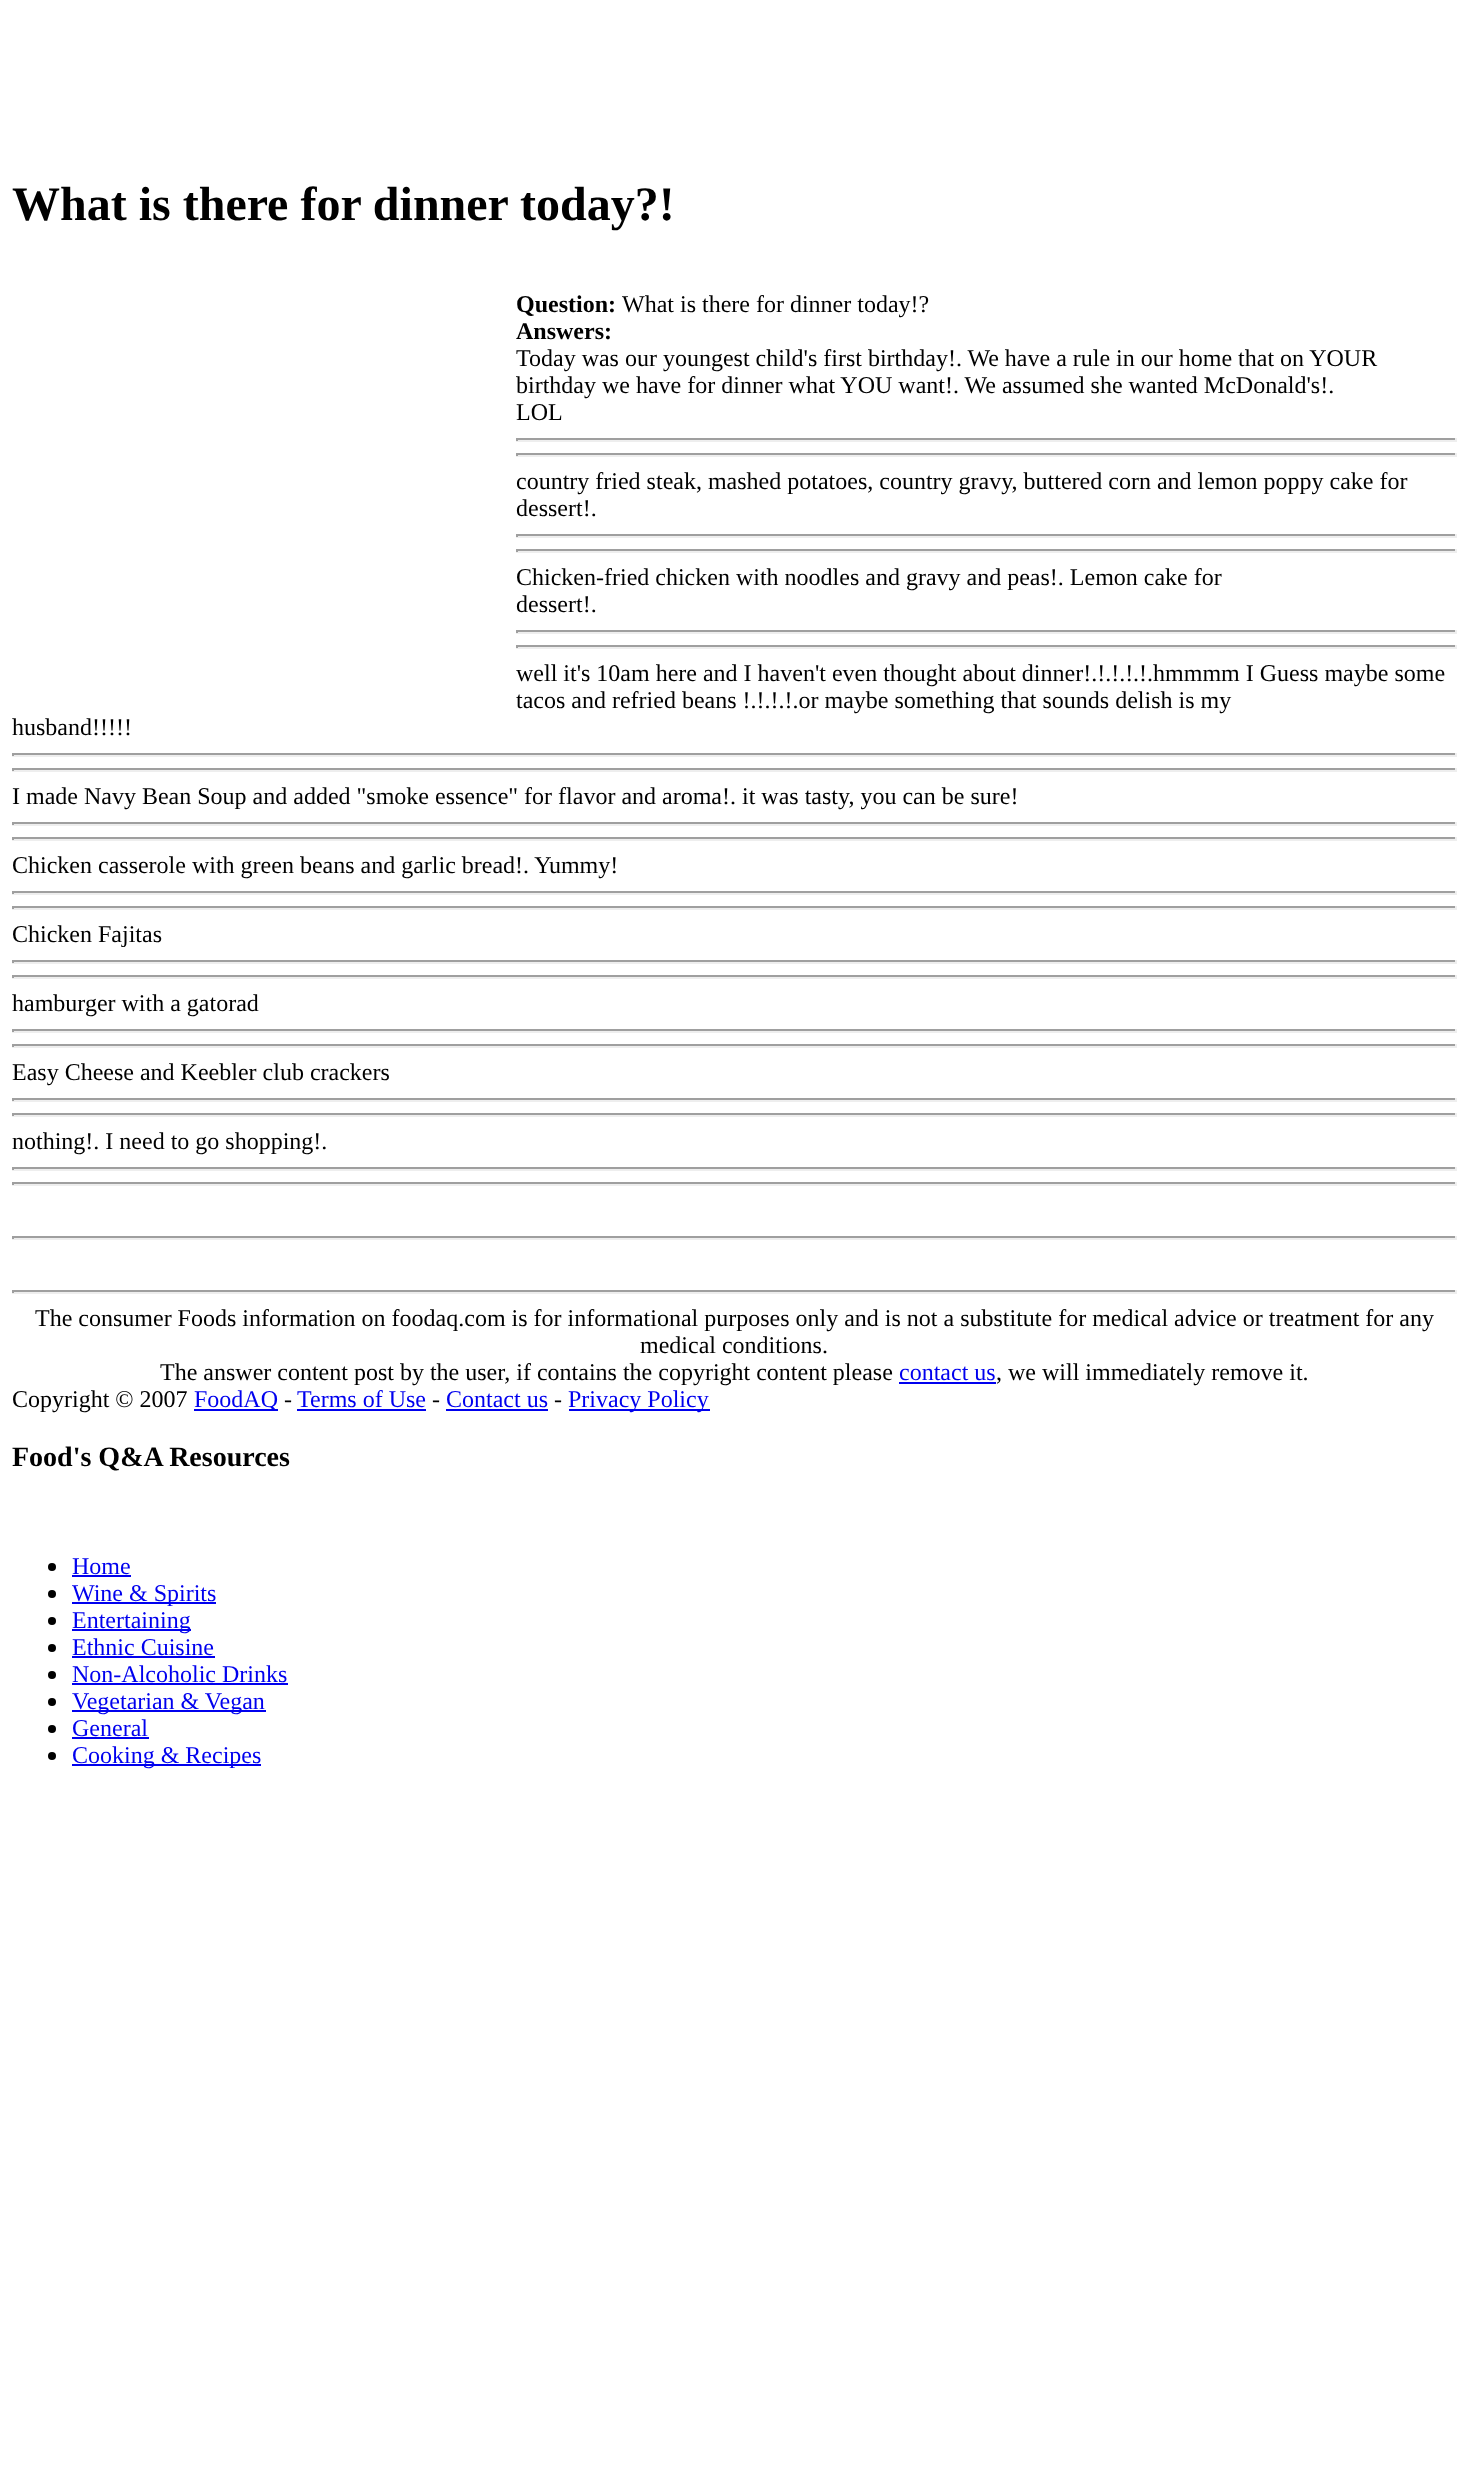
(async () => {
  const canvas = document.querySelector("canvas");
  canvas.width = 1468;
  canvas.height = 2468;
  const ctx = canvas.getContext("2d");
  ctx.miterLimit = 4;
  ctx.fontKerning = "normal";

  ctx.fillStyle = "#ffffff";
  ctx.fillRect(0, 0, 1468, 2468);
  for (const [x, y, w, h, color] of [
    [516, 438, 941, 2, "#9f9f9f"],
    [1455, 438, 2, 3, "#eeeeee"],
    [516, 440, 941, 2, "#eeeeee"],
    [516, 438, 2, 3, "#9f9f9f"],
    [516, 453, 941, 2, "#9f9f9f"],
    [1455, 453, 2, 3, "#eeeeee"],
    [516, 455, 941, 2, "#eeeeee"],
    [516, 453, 2, 3, "#9f9f9f"],
    [516, 534, 941, 2, "#9f9f9f"],
    [1455, 534, 2, 3, "#eeeeee"],
    [516, 536, 941, 2, "#eeeeee"],
    [516, 534, 2, 3, "#9f9f9f"],
    [516, 549, 941, 2, "#9f9f9f"],
    [1455, 549, 2, 3, "#eeeeee"],
    [516, 551, 941, 2, "#eeeeee"],
    [516, 549, 2, 3, "#9f9f9f"],
    [516, 630, 941, 2, "#9f9f9f"],
    [1455, 630, 2, 3, "#eeeeee"],
    [516, 632, 941, 2, "#eeeeee"],
    [516, 630, 2, 3, "#9f9f9f"],
    [516, 645, 941, 2, "#9f9f9f"],
    [1455, 645, 2, 3, "#eeeeee"],
    [516, 647, 941, 2, "#eeeeee"],
    [516, 645, 2, 3, "#9f9f9f"],
    [12, 753, 1445, 2, "#9f9f9f"],
    [1455, 753, 2, 3, "#eeeeee"],
    [12, 755, 1445, 2, "#eeeeee"],
    [12, 753, 2, 3, "#9f9f9f"],
    [12, 768, 1445, 2, "#9f9f9f"],
    [1455, 768, 2, 3, "#eeeeee"],
    [12, 770, 1445, 2, "#eeeeee"],
    [12, 768, 2, 3, "#9f9f9f"],
    [12, 822, 1445, 2, "#9f9f9f"],
    [1455, 822, 2, 3, "#eeeeee"],
    [12, 824, 1445, 2, "#eeeeee"],
    [12, 822, 2, 3, "#9f9f9f"],
    [12, 837, 1445, 2, "#9f9f9f"],
    [1455, 837, 2, 3, "#eeeeee"],
    [12, 839, 1445, 2, "#eeeeee"],
    [12, 837, 2, 3, "#9f9f9f"],
    [12, 891, 1445, 2, "#9f9f9f"],
    [1455, 891, 2, 3, "#eeeeee"],
    [12, 893, 1445, 2, "#eeeeee"],
    [12, 891, 2, 3, "#9f9f9f"],
    [12, 906, 1445, 2, "#9f9f9f"],
    [1455, 906, 2, 3, "#eeeeee"],
    [12, 908, 1445, 2, "#eeeeee"],
    [12, 906, 2, 3, "#9f9f9f"],
    [12, 960, 1445, 2, "#9f9f9f"],
    [1455, 960, 2, 3, "#eeeeee"],
    [12, 962, 1445, 2, "#eeeeee"],
    [12, 960, 2, 3, "#9f9f9f"],
    [12, 975, 1445, 2, "#9f9f9f"],
    [1455, 975, 2, 3, "#eeeeee"],
    [12, 977, 1445, 2, "#eeeeee"],
    [12, 975, 2, 3, "#9f9f9f"],
    [12, 1029, 1445, 2, "#9f9f9f"],
    [1455, 1029, 2, 3, "#eeeeee"],
    [12, 1031, 1445, 2, "#eeeeee"],
    [12, 1029, 2, 3, "#9f9f9f"],
    [12, 1044, 1445, 2, "#9f9f9f"],
    [1455, 1044, 2, 3, "#eeeeee"],
    [12, 1046, 1445, 2, "#eeeeee"],
    [12, 1044, 2, 3, "#9f9f9f"],
    [12, 1098, 1445, 2, "#9f9f9f"],
    [1455, 1098, 2, 3, "#eeeeee"],
    [12, 1100, 1445, 2, "#eeeeee"],
    [12, 1098, 2, 3, "#9f9f9f"],
    [12, 1113, 1445, 2, "#9f9f9f"],
    [1455, 1113, 2, 3, "#eeeeee"],
    [12, 1115, 1445, 2, "#eeeeee"],
    [12, 1113, 2, 3, "#9f9f9f"],
    [12, 1167, 1445, 2, "#9f9f9f"],
    [1455, 1167, 2, 3, "#eeeeee"],
    [12, 1169, 1445, 2, "#eeeeee"],
    [12, 1167, 2, 3, "#9f9f9f"],
    [12, 1182, 1445, 2, "#9f9f9f"],
    [1455, 1182, 2, 3, "#eeeeee"],
    [12, 1184, 1445, 2, "#eeeeee"],
    [12, 1182, 2, 3, "#9f9f9f"],
    [12, 1236, 1445, 2, "#9f9f9f"],
    [1455, 1236, 2, 3, "#eeeeee"],
    [12, 1238, 1445, 2, "#eeeeee"],
    [12, 1236, 2, 3, "#9f9f9f"],
    [12, 1290, 1445, 2, "#9f9f9f"],
    [1455, 1290, 2, 3, "#eeeeee"],
    [12, 1292, 1445, 2, "#eeeeee"],
    [12, 1290, 2, 3, "#9f9f9f"],
    [899, 1382, 97, 2, "#0000ee"],
    [194, 1409, 84, 2, "#0000ee"],
    [297, 1409, 129, 2, "#0000ee"],
    [446, 1409, 102, 2, "#0000ee"],
    [569, 1409, 141, 2, "#0000ee"],
  ]) {
    ctx.fillStyle = color;
    ctx.fillRect(x, y, w, h);
  }
  ctx.fillStyle = "#000000";
  ctx.beginPath();
  ctx.arc(52, 1567, 4, 0, Math.PI * 2);
  ctx.fill();
  ctx.fillStyle = "#0000ee";
  ctx.fillRect(72, 1575, 59, 2);
  ctx.fillStyle = "#000000";
  ctx.beginPath();
  ctx.arc(52, 1594, 4, 0, Math.PI * 2);
  ctx.fill();
  ctx.fillStyle = "#0000ee";
  ctx.fillRect(72, 1602, 144, 2);
  ctx.fillStyle = "#000000";
  ctx.beginPath();
  ctx.arc(52, 1621, 4, 0, Math.PI * 2);
  ctx.fill();
  ctx.fillStyle = "#0000ee";
  ctx.fillRect(72, 1629, 119, 2);
  ctx.fillStyle = "#000000";
  ctx.beginPath();
  ctx.arc(52, 1648, 4, 0, Math.PI * 2);
  ctx.fill();
  ctx.fillStyle = "#0000ee";
  ctx.fillRect(72, 1656, 143, 2);
  ctx.fillStyle = "#000000";
  ctx.beginPath();
  ctx.arc(52, 1675, 4, 0, Math.PI * 2);
  ctx.fill();
  ctx.fillStyle = "#0000ee";
  ctx.fillRect(72, 1683, 216, 2);
  ctx.fillStyle = "#000000";
  ctx.beginPath();
  ctx.arc(52, 1702, 4, 0, Math.PI * 2);
  ctx.fill();
  ctx.fillStyle = "#0000ee";
  ctx.fillRect(72, 1710, 194, 2);
  ctx.fillStyle = "#000000";
  ctx.beginPath();
  ctx.arc(52, 1729, 4, 0, Math.PI * 2);
  ctx.fill();
  ctx.fillStyle = "#0000ee";
  ctx.fillRect(72, 1737, 77, 2);
  ctx.fillStyle = "#000000";
  ctx.beginPath();
  ctx.arc(52, 1756, 4, 0, Math.PI * 2);
  ctx.fill();
  ctx.fillStyle = "#0000ee";
  ctx.fillRect(72, 1764, 189, 2);
  ctx.font = "bold 48px Liberation Serif";
  ctx.fillStyle = "#000000";
  ctx.fillText("What is there for dinner today?!", 12, 220);
  ctx.font = "bold 24px Liberation Serif";
  ctx.fillText("Question:", 516, 312);
  ctx.font = "24px Liberation Serif";
  ctx.fillText("What is there for dinner today!?", 622, 312);
  ctx.font = "bold 24px Liberation Serif";
  ctx.fillText("Answers:", 516, 339);
  ctx.font = "24px Liberation Serif";
  for (const [text, x, y] of [
    ["Today was our youngest child's first birthday!. We have a rule in our home that on YOUR", 516, 366],
    ["birthday we have for dinner what YOU want!. We assumed she wanted McDonald's!.", 516, 393],
    ["LOL", 516, 420],
    ["country fried steak, mashed potatoes, country gravy, buttered corn and lemon poppy cake for", 516, 489],
    ["dessert!.", 516, 516],
    ["Chicken-fried chicken with noodles and gravy and peas!. Lemon cake for", 516, 585],
    ["dessert!.", 516, 612],
    ["well it's 10am here and I haven't even thought about dinner!.!.!.!.!.hmmmm I Guess maybe some", 516, 681],
    ["tacos and refried beans !.!.!.!.or maybe something that sounds delish is my", 516, 708],
    ["husband!!!!!", 12, 735],
    ["I made Navy Bean Soup and added \"smoke essence\" for flavor and aroma!. it was tasty, you can be sure!", 12, 804],
    ["Chicken casserole with green beans and garlic bread!. Yummy!", 12, 873],
    ["Chicken Fajitas", 12, 942],
    ["hamburger with a gatorad", 12, 1011],
    ["Easy Cheese and Keebler club crackers", 12, 1080],
    ["nothing!. I need to go shopping!.", 12, 1149],
    ["The consumer Foods information on foodaq.com is for informational purposes only and is not a substitute for medical advice or treatment for any", 35, 1326],
    ["medical conditions.", 640, 1353],
    ["The answer content post by the user, if contains the copyright content please", 160, 1380],
  ]) {
    ctx.fillText(text, x, y);
  }
  ctx.fillStyle = "#0000ee";
  ctx.fillText("contact us", 899, 1380);
  ctx.fillStyle = "#000000";
  ctx.fillText(", we will immediately remove it.", 996, 1380);
  ctx.fillText("Copyright © 2007", 12, 1407);
  ctx.fillStyle = "#0000ee";
  ctx.fillText("FoodAQ", 194, 1407);
  ctx.fillStyle = "#000000";
  ctx.fillText("-", 284, 1407);
  ctx.fillStyle = "#0000ee";
  ctx.fillText("Terms of Use", 297, 1407);
  ctx.fillStyle = "#000000";
  ctx.fillText("-", 432, 1407);
  ctx.fillStyle = "#0000ee";
  ctx.fillText("Contact us", 446, 1407);
  ctx.fillStyle = "#000000";
  ctx.fillText("-", 554, 1407);
  ctx.fillStyle = "#0000ee";
  ctx.fillText("Privacy Policy", 568, 1407);
  ctx.font = "bold 28px Liberation Serif";
  ctx.fillStyle = "#000000";
  ctx.fillText("Food's Q&A Resources", 12, 1466);
  ctx.font = "24px Liberation Serif";
  ctx.fillStyle = "#0000ee";
  for (const [text, x, y] of [
    ["Home", 72, 1574],
    ["Wine & Spirits", 72, 1601],
    ["Entertaining", 72, 1628],
    ["Ethnic Cuisine", 72, 1655],
    ["Non-Alcoholic Drinks", 72, 1682],
    ["Vegetarian & Vegan", 72, 1709],
    ["General", 72, 1736],
    ["Cooking & Recipes", 72, 1763],
  ]) {
    ctx.fillText(text, x, y);
  }
})();
